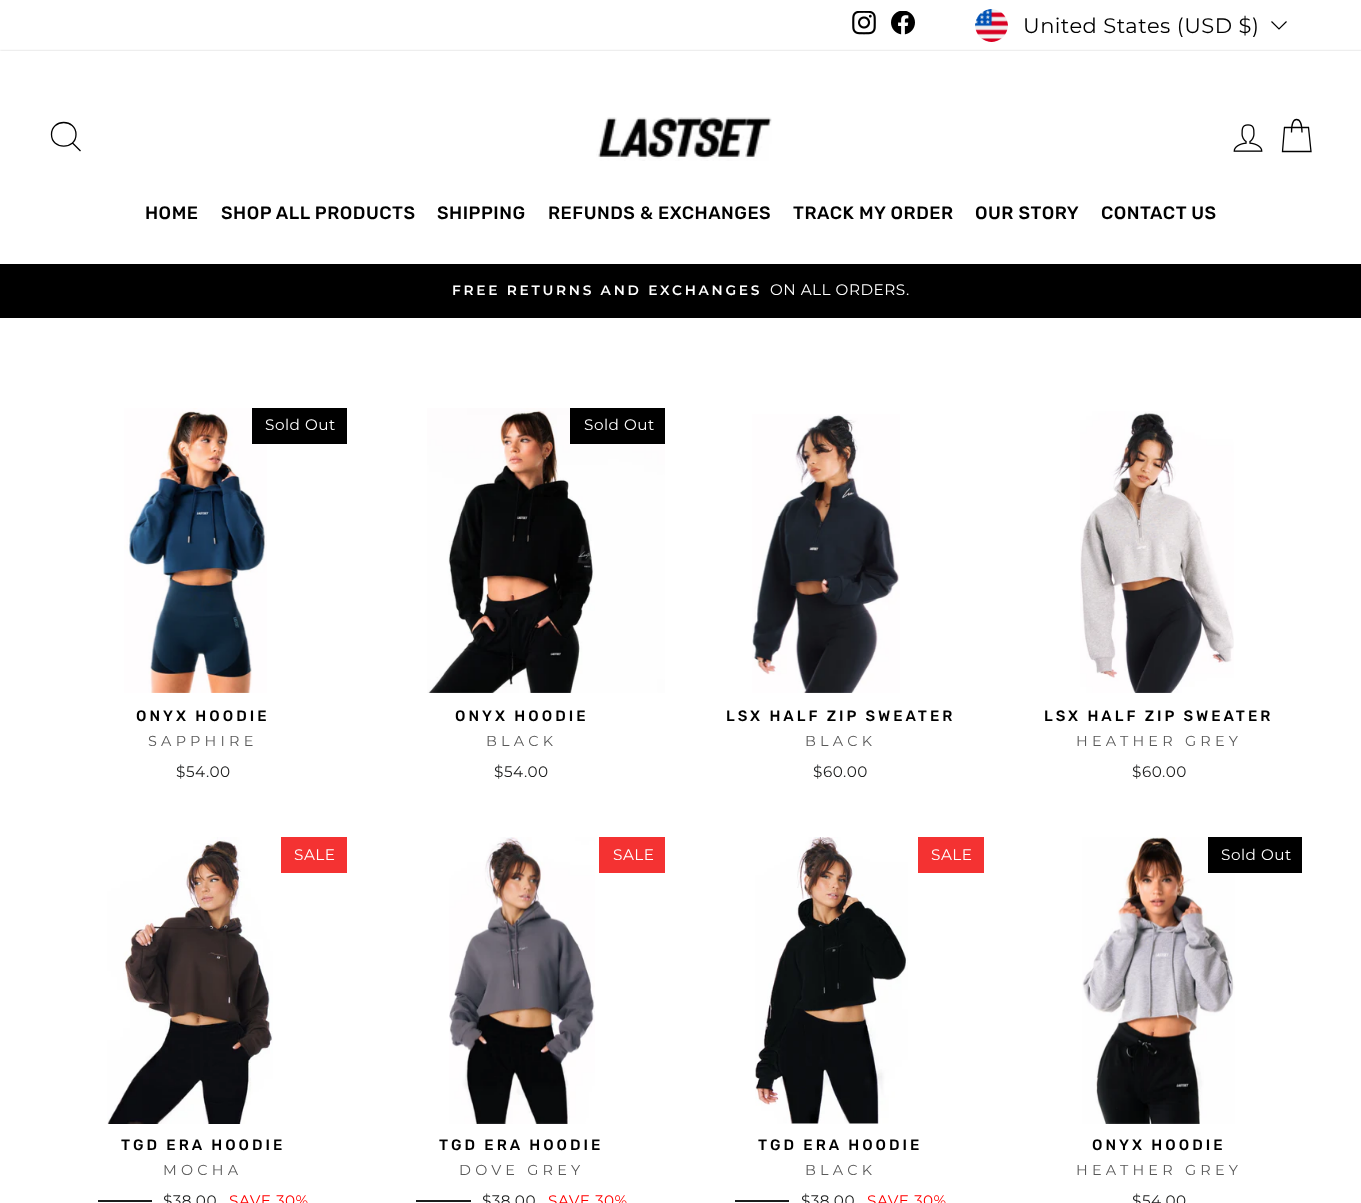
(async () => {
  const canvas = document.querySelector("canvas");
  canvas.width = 1361;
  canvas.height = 1203;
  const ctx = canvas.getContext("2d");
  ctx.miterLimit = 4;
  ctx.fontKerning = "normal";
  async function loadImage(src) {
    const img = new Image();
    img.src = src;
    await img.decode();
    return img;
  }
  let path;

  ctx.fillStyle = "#ffffff";
  ctx.fillRect(0, 0, 1361, 1203);
  ctx.drawImage(await loadImage("img/1.png"), 852, 11, 24, 24);
  ctx.drawImage(await loadImage("img/2.png"), 891, 11, 24, 24);
  ctx.drawImage(await loadImage("img/3.png"), 975, 9, 33, 33);
  path = new Path2D("M1271.5 21.5L1279 29L1286.5 21.5");
  ctx.strokeStyle = "#000000";
  ctx.lineWidth = 1.2;
  ctx.stroke(path);
  ctx.fillStyle = "#000000";
  ctx.fillRect(0, 264, 1361, 54);
  ctx.save();
  path = new Path2D("M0 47H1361V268H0ZM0 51H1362V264H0Z");
  ctx.clip(path, "evenodd");
  ctx.fillStyle = "rgba(0, 0, 0, 0.2)";
  ctx.filter = "blur(1px)";
  ctx.beginPath();
  ctx.rect(0, 51, 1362, 213);
  ctx.fill();
  ctx.filter = "none";
  ctx.restore();
  path = new Path2D("M76 134.5C76 150 51.5 150 51.5 134.5C51.5 118.5 76 118.5 76 134.5ZM80.5 151L72.5 143");
  ctx.lineWidth = 1.3;
  ctx.stroke(path);
  ctx.drawImage(await loadImage("img/4.png"), 596, 117, 176, 44);
  ctx.drawImage(await loadImage("img/5.png"), 1233, 124, 30, 28);
  path = new Path2D("M1291.5 132.5C1291.5 122 1293.5 119.5 1296.5 119.5C1299.5 119.5 1302 122 1302 132.5M1284.5 127.5H1308.5L1311 151.5H1282.5Z");
  ctx.stroke(path);
  ctx.drawImage(await loadImage("img/6.png"), 124, 408, 143, 285);
  ctx.fillRect(252, 408, 95, 36);
  ctx.drawImage(await loadImage("img/7.png"), 427, 408, 238, 285);
  ctx.fillRect(570, 408, 95, 36);
  ctx.drawImage(await loadImage("img/8.png"), 752, 414, 148, 279);
  ctx.drawImage(await loadImage("img/9.png"), 1080, 411, 154, 282);
  ctx.fillStyle = "#f43232";
  ctx.fillRect(281, 837, 66, 36);
  ctx.drawImage(await loadImage("img/10.png"), 107, 837, 166, 287);
  ctx.fillStyle = "#1c1d1d";
  ctx.fillRect(98, 1200, 54, 2);
  ctx.fillStyle = "#f43232";
  ctx.fillRect(599, 837, 66, 36);
  ctx.drawImage(await loadImage("img/11.png"), 449, 837, 146, 287);
  ctx.fillStyle = "#1c1d1d";
  ctx.fillRect(416, 1200, 55, 2);
  ctx.fillStyle = "#f43232";
  ctx.fillRect(918, 837, 66, 36);
  ctx.drawImage(await loadImage("img/12.png"), 755, 837, 153, 287);
  ctx.fillStyle = "#1c1d1d";
  ctx.fillRect(735, 1200, 54, 2);
  ctx.drawImage(await loadImage("img/13.png"), 1082, 837, 153, 287);
  ctx.fillStyle = "#000000";
  ctx.fillRect(1208, 837, 94, 36);
  ctx.letterSpacing = "0.5px";
  ctx.font = "21px Montserrat";
  ctx.fillText("United States (USD $)", 1023, 33);
  ctx.font = "300 18px Rubik";
  for (const [text, x, y] of [
    ["HOME", 145, 219],
    ["SHOP ALL PRODUCTS", 221, 219],
    ["SHIPPING", 437, 219],
    ["REFUNDS & EXCHANGES", 548, 219],
    ["TRACK MY ORDER", 793, 219],
    ["OUR STORY", 975, 219],
    ["CONTACT US", 1101, 219],
  ]) {
    ctx.fillText(text, x, y);
  }
  ctx.letterSpacing = "2.75px";
  ctx.font = "600 13.75px Montserrat";
  ctx.fillStyle = "#ffffff";
  ctx.fillText("FREE RETURNS AND EXCHANGES", 452, 295);
  ctx.letterSpacing = "0.5px";
  ctx.font = "15.25px Montserrat";
  ctx.fillText("ON ALL ORDERS.", 770, 295);
  ctx.fillText("Sold Out", 265, 430);
  ctx.letterSpacing = "3px";
  ctx.font = "300 15px Rubik";
  ctx.fillStyle = "#000000";
  ctx.fillText("ONYX HOODIE", 136, 721);
  ctx.letterSpacing = "4.25px";
  ctx.font = "14.4px Montserrat";
  ctx.fillStyle = "#595959";
  ctx.fillText("SAPPHIRE", 148, 746);
  ctx.letterSpacing = "0.5px";
  ctx.font = "15.25px Montserrat";
  ctx.fillStyle = "#1c1d1d";
  ctx.fillText("$54.00", 176, 777);
  ctx.fillStyle = "#ffffff";
  ctx.fillText("Sold Out", 584, 430);
  ctx.letterSpacing = "3px";
  ctx.font = "300 15px Rubik";
  ctx.fillStyle = "#000000";
  ctx.fillText("ONYX HOODIE", 455, 721);
  ctx.letterSpacing = "4.25px";
  ctx.font = "14.4px Montserrat";
  ctx.fillStyle = "#595959";
  ctx.fillText("BLACK", 486, 746);
  ctx.letterSpacing = "0.5px";
  ctx.font = "15.25px Montserrat";
  ctx.fillStyle = "#1c1d1d";
  ctx.fillText("$54.00", 494, 777);
  ctx.letterSpacing = "3px";
  ctx.font = "300 15px Rubik";
  ctx.fillStyle = "#000000";
  ctx.fillText("LSX HALF ZIP SWEATER", 726, 721);
  ctx.letterSpacing = "4.25px";
  ctx.font = "14.4px Montserrat";
  ctx.fillStyle = "#595959";
  ctx.fillText("BLACK", 805, 746);
  ctx.letterSpacing = "0.5px";
  ctx.font = "15.25px Montserrat";
  ctx.fillStyle = "#1c1d1d";
  ctx.fillText("$60.00", 813, 777);
  ctx.letterSpacing = "3px";
  ctx.font = "300 15px Rubik";
  ctx.fillStyle = "#000000";
  ctx.fillText("LSX HALF ZIP SWEATER", 1044, 721);
  ctx.letterSpacing = "4.25px";
  ctx.font = "14.4px Montserrat";
  ctx.fillStyle = "#595959";
  ctx.fillText("HEATHER GREY", 1076, 746);
  ctx.letterSpacing = "0.5px";
  ctx.font = "15.25px Montserrat";
  ctx.fillStyle = "#1c1d1d";
  ctx.fillText("$60.00", 1132, 777);
  ctx.fillStyle = "#ffffff";
  ctx.fillText("SALE", 294, 860);
  ctx.letterSpacing = "3px";
  ctx.font = "300 15px Rubik";
  ctx.fillStyle = "#000000";
  ctx.fillText("TGD ERA HOODIE", 121, 1150);
  ctx.letterSpacing = "4.25px";
  ctx.font = "14.4px Montserrat";
  ctx.fillStyle = "#595959";
  ctx.fillText("MOCHA", 163, 1175);
  ctx.letterSpacing = "0.5px";
  ctx.font = "15.25px Montserrat";
  ctx.fillStyle = "#1c1d1d";
  ctx.fillText("$38.00", 163, 1206);
  ctx.fillStyle = "#ff0000";
  ctx.fillText("SAVE 30%", 229, 1206);
  ctx.fillStyle = "#ffffff";
  ctx.fillText("SALE", 613, 860);
  ctx.letterSpacing = "3px";
  ctx.font = "300 15px Rubik";
  ctx.fillStyle = "#000000";
  ctx.fillText("TGD ERA HOODIE", 439, 1150);
  ctx.letterSpacing = "4.25px";
  ctx.font = "14.4px Montserrat";
  ctx.fillStyle = "#595959";
  ctx.fillText("DOVE GREY", 459, 1175);
  ctx.letterSpacing = "0.5px";
  ctx.font = "15.25px Montserrat";
  ctx.fillStyle = "#1c1d1d";
  ctx.fillText("$38.00", 482, 1206);
  ctx.fillStyle = "#ff0000";
  ctx.fillText("SAVE 30%", 548, 1206);
  ctx.fillStyle = "#ffffff";
  ctx.fillText("SALE", 931, 860);
  ctx.letterSpacing = "3px";
  ctx.font = "300 15px Rubik";
  ctx.fillStyle = "#000000";
  ctx.fillText("TGD ERA HOODIE", 758, 1150);
  ctx.letterSpacing = "4.25px";
  ctx.font = "14.4px Montserrat";
  ctx.fillStyle = "#595959";
  ctx.fillText("BLACK", 805, 1175);
  ctx.letterSpacing = "0.5px";
  ctx.font = "15.25px Montserrat";
  ctx.fillStyle = "#1c1d1d";
  ctx.fillText("$38.00", 801, 1206);
  ctx.fillStyle = "#ff0000";
  ctx.fillText("SAVE 30%", 867, 1206);
  ctx.fillStyle = "#ffffff";
  ctx.fillText("Sold Out", 1221, 860);
  ctx.letterSpacing = "3px";
  ctx.font = "300 15px Rubik";
  ctx.fillStyle = "#000000";
  ctx.fillText("ONYX HOODIE", 1092, 1150);
  ctx.letterSpacing = "4.25px";
  ctx.font = "14.4px Montserrat";
  ctx.fillStyle = "#595959";
  ctx.fillText("HEATHER GREY", 1076, 1175);
  ctx.letterSpacing = "0.5px";
  ctx.font = "15.25px Montserrat";
  ctx.fillStyle = "#1c1d1d";
  ctx.fillText("$54.00", 1132, 1206);
})();
